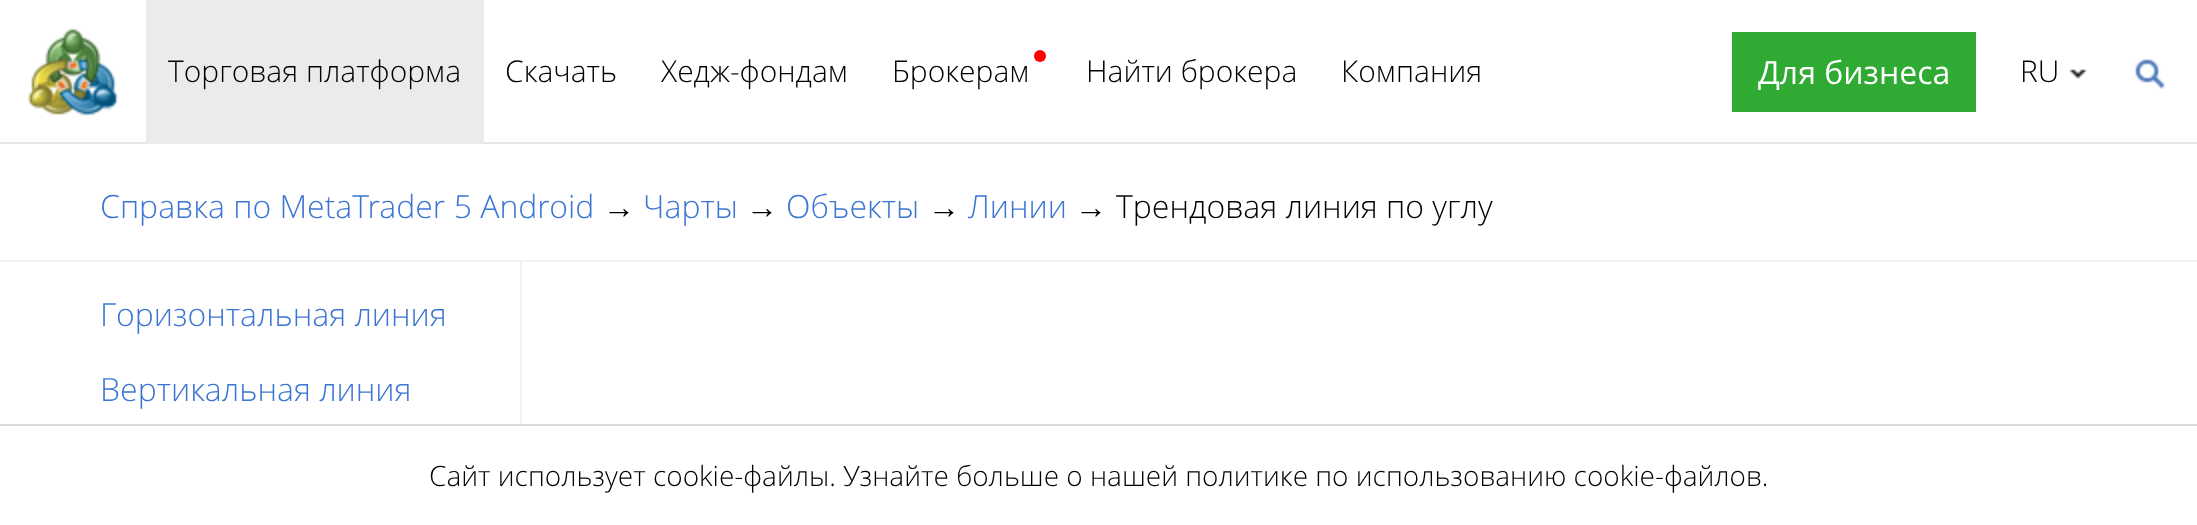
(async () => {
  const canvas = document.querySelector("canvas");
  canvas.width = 2197;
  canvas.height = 525;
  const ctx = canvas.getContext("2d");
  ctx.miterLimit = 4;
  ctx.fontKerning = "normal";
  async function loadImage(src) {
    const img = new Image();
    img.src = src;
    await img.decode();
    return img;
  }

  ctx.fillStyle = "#ffffff";
  ctx.fillRect(0, 0, 2197, 525);
  ctx.fillStyle = "#e6e6e6";
  ctx.fillRect(0, 142, 2197, 2);
  ctx.drawImage(await loadImage("img/1.png"), 27, 27, 92, 89);
  ctx.fillStyle = "#ebebeb";
  ctx.fillRect(146, 0, 338, 144);
  ctx.fillStyle = "#ff0000";
  ctx.beginPath();
  ctx.arc(1040, 56, 6, 0, Math.PI * 2);
  ctx.fill();
  ctx.fillStyle = "#2fab34";
  ctx.fillRect(1732, 32, 244, 80);
  ctx.drawImage(await loadImage("img/2.png"), 2069, 69, 18, 10);
  ctx.drawImage(await loadImage("img/3.png"), 2135, 59, 30, 30);
  for (const [x, y, w, h, color] of [
    [0, 260, 2197, 2, "#f3f3f3"],
    [520, 262, 2, 162, "#f3f3f3"],
    [0, 424, 2197, 2, "#dadada"],
  ]) {
    ctx.fillStyle = color;
    ctx.fillRect(x, y, w, h);
  }
  ctx.font = "300 30px Open Sans";
  ctx.fillStyle = "#000000";
  for (const [text, x, y] of [
    ["Торговая платформа", 168, 82],
    ["Скачать", 505, 82],
    ["Хедж-фондам", 661, 82],
    ["Брокерам", 892, 82],
    ["Найти брокера", 1086, 82],
    ["Компания", 1341, 82],
  ]) {
    ctx.fillText(text, x, y);
  }
  ctx.font = "32px Open Sans";
  ctx.fillStyle = "#ffffff";
  ctx.fillText("Для бизнеса", 1758, 84);
  ctx.font = "300 30px Open Sans";
  ctx.fillStyle = "#000000";
  ctx.fillText("RU", 2020, 82);
  ctx.font = "300 32px Open Sans";
  ctx.fillStyle = "#3b75d3";
  ctx.fillText("Справка по MetaTrader 5 Android", 100, 218);
  ctx.font = "32px Liberation Sans";
  ctx.fillStyle = "#000000";
  ctx.fillText("→", 603, 218);
  ctx.font = "300 32px Open Sans";
  ctx.fillStyle = "#3b75d3";
  ctx.fillText("Чарты", 643, 218);
  ctx.font = "32px Liberation Sans";
  ctx.fillStyle = "#000000";
  ctx.fillText("→", 746, 218);
  ctx.font = "300 32px Open Sans";
  ctx.fillStyle = "#3b75d3";
  ctx.fillText("Объекты", 786, 218);
  ctx.font = "32px Liberation Sans";
  ctx.fillStyle = "#000000";
  ctx.fillText("→", 928, 218);
  ctx.font = "300 32px Open Sans";
  ctx.fillStyle = "#3b75d3";
  ctx.fillText("Линии", 968, 218);
  ctx.font = "32px Liberation Sans";
  ctx.fillStyle = "#000000";
  ctx.fillText("→", 1075, 218);
  ctx.font = "300 32px Open Sans";
  ctx.fillText("Трендовая линия по углу", 1116, 218);
  ctx.fillStyle = "#3b75d3";
  ctx.fillText("Горизонтальная линия", 100, 326);
  ctx.fillText("Вертикальная линия", 100, 401);
  ctx.font = "300 28px Open Sans";
  ctx.fillStyle = "#000000";
  ctx.fillText("Сайт использует cookie-файлы. Узнайте больше о нашей политике по использованию cookie-файлов.", 429, 486);
})();
